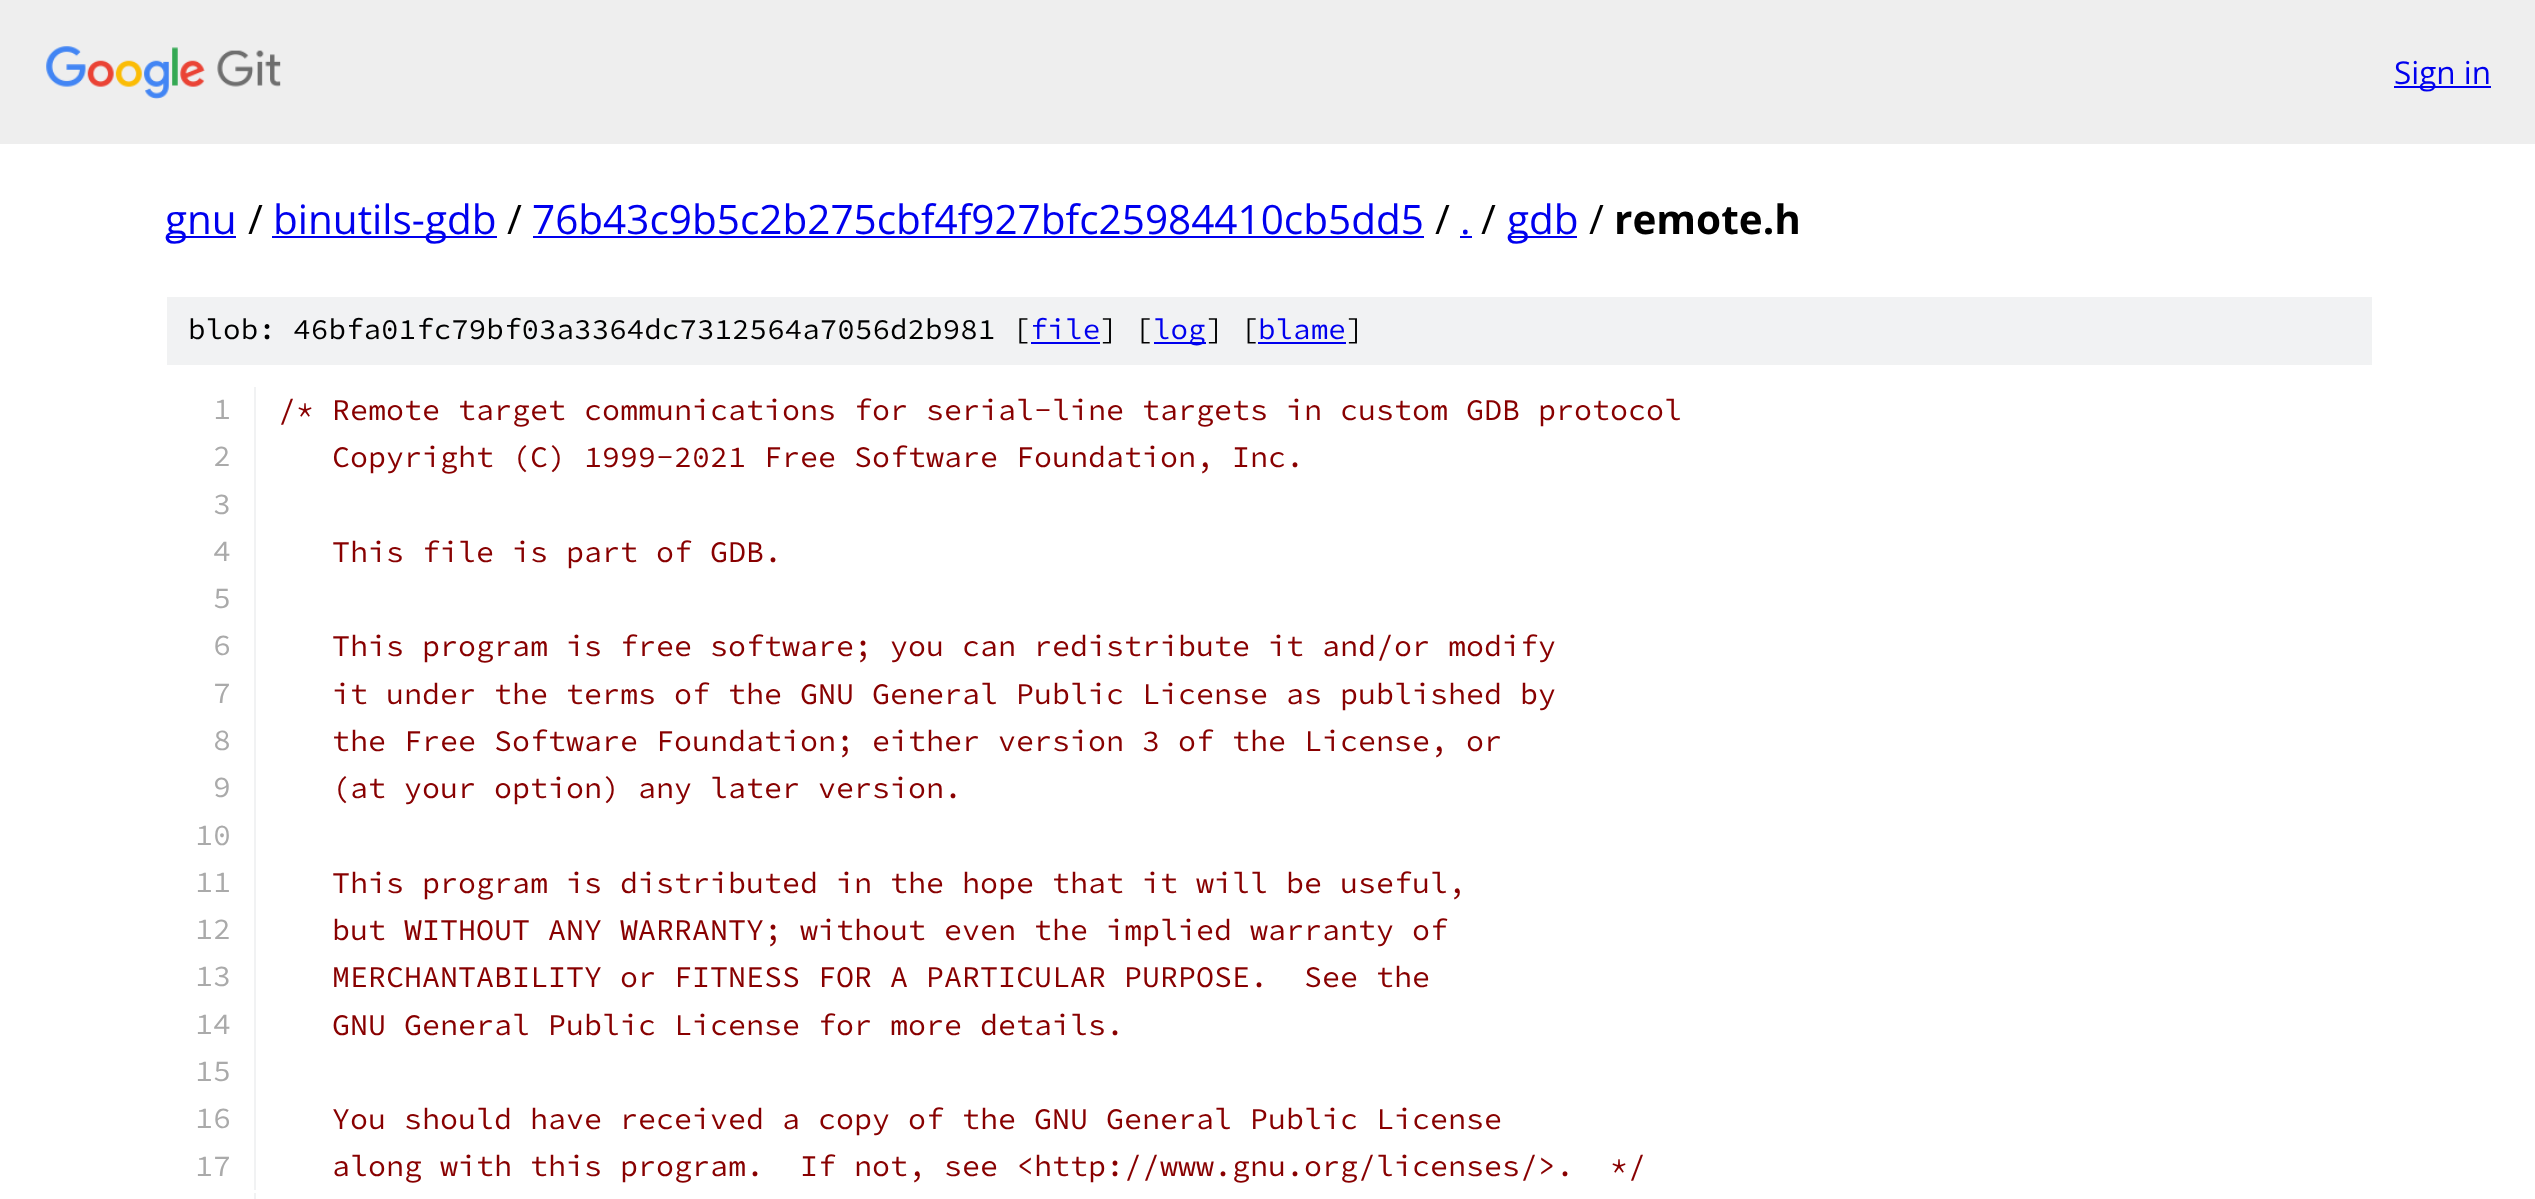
(async () => {
  const canvas = document.querySelector("canvas");
  canvas.width = 2535;
  canvas.height = 1199;
  const ctx = canvas.getContext("2d");
  ctx.miterLimit = 4;
  ctx.fontKerning = "normal";
  async function loadImage(src) {
    const img = new Image();
    img.src = src;
    await img.decode();
    return img;
  }

  ctx.fillStyle = "#ffffff";
  ctx.fillRect(0, 0, 2535, 1199);
  ctx.fillStyle = "#eeeeee";
  ctx.fillRect(0, 0, 2535, 144);
  ctx.drawImage(await loadImage("img/1.png"), 46, 46, 235, 53);
  for (const [x, y, w, h, color] of [
    [2394, 86, 97, 2, "#0000ee"],
    [167, 236, 69, 2, "#0000ee"],
    [272, 236, 225, 2, "#0000ee"],
    [533, 236, 891, 2, "#0000ee"],
    [1460, 236, 12, 2, "#0000ee"],
    [1508, 236, 69, 2, "#0000ee"],
    [167, 297, 2205, 68, "#f1f2f3"],
    [1031, 342, 69, 2, "#0000ee"],
    [1154, 342, 52, 2, "#0000ee"],
    [1258, 342, 88, 2, "#0000ee"],
    [254, 387, 2, 803, "#f1f2f3"],
    [254, 1193, 2, 6, "#f1f2f3"],
  ]) {
    ctx.fillStyle = color;
    ctx.fillRect(x, y, w, h);
  }
  ctx.font = "31.5px Open Sans";
  ctx.fillStyle = "#0000ee";
  ctx.fillText("Sign in", 2394, 84);
  ctx.font = "40.5px Open Sans";
  ctx.fillText("gnu", 165, 234);
  ctx.fillStyle = "#000000";
  ctx.fillText("/", 248, 234);
  ctx.fillStyle = "#0000ee";
  ctx.fillText("binutils-gdb", 273, 234);
  ctx.fillStyle = "#000000";
  ctx.fillText("/", 507, 234);
  ctx.fillStyle = "#0000ee";
  ctx.fillText("76b43c9b5c2b275cbf4f927bfc25984410cb5dd5", 532, 234);
  ctx.fillStyle = "#000000";
  ctx.fillText("/", 1435, 234);
  ctx.fillStyle = "#0000ee";
  ctx.fillText(".", 1460, 234);
  ctx.fillStyle = "#000000";
  ctx.fillText("/", 1481, 234);
  ctx.fillStyle = "#0000ee";
  ctx.fillText("gdb", 1507, 234);
  ctx.fillStyle = "#000000";
  ctx.fillText("/", 1589, 234);
  ctx.font = "bold 40.5px Open Sans";
  ctx.fillText("remote.h", 1614, 234);
  ctx.font = "200 29.25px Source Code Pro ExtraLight";
  ctx.fillText("blob: 46bfa01fc79bf03a3364dc7312564a7056d2b981 [", 188, 339);
  ctx.fillStyle = "#0000ee";
  ctx.fillText("file", 1030, 339);
  ctx.fillStyle = "#000000";
  ctx.fillText("] [", 1100, 339);
  ctx.fillStyle = "#0000ee";
  ctx.fillText("log", 1153, 339);
  ctx.fillStyle = "#000000";
  ctx.fillText("] [", 1206, 339);
  ctx.fillStyle = "#0000ee";
  ctx.fillText("blame", 1258, 339);
  ctx.fillStyle = "#000000";
  ctx.fillText("]", 1346, 339);
  ctx.font = "200 30px Source Code Pro ExtraLight";
  ctx.fillStyle = "#aaaaaa";
  ctx.fillText("1", 213, 419);
  ctx.fillStyle = "#880000";
  ctx.fillText("/* Remote target communications for serial-line targets in custom GDB protocol", 278, 420);
  ctx.fillStyle = "#aaaaaa";
  ctx.fillText("2", 213, 466);
  ctx.fillStyle = "#880000";
  ctx.fillText("Copyright (C) 1999-2021 Free Software Foundation, Inc.", 332, 467);
  ctx.fillStyle = "#aaaaaa";
  ctx.fillText("3", 213, 514);
  ctx.fillText("4", 213, 561);
  ctx.fillStyle = "#880000";
  ctx.fillText("This file is part of GDB.", 332, 562);
  ctx.fillStyle = "#aaaaaa";
  ctx.fillText("5", 213, 608);
  ctx.fillText("6", 213, 655);
  ctx.fillStyle = "#880000";
  ctx.fillText("This program is free software; you can redistribute it and/or modify", 332, 656);
  ctx.fillStyle = "#aaaaaa";
  ctx.fillText("7", 213, 703);
  ctx.fillStyle = "#880000";
  ctx.fillText("it under the terms of the GNU General Public License as published by", 332, 704);
  ctx.fillStyle = "#aaaaaa";
  ctx.fillText("8", 213, 750);
  ctx.fillStyle = "#880000";
  ctx.fillText("the Free Software Foundation; either version 3 of the License, or", 332, 751);
  ctx.fillStyle = "#aaaaaa";
  ctx.fillText("9", 213, 797);
  ctx.fillStyle = "#880000";
  ctx.fillText("(at your option) any later version.", 332, 798);
  ctx.fillStyle = "#aaaaaa";
  ctx.fillText("10", 195, 845);
  ctx.fillText("11", 195, 892);
  ctx.fillStyle = "#880000";
  ctx.fillText("This program is distributed in the hope that it will be useful,", 332, 893);
  ctx.fillStyle = "#aaaaaa";
  ctx.fillText("12", 195, 939);
  ctx.fillStyle = "#880000";
  ctx.fillText("but WITHOUT ANY WARRANTY; without even the implied warranty of", 332, 940);
  ctx.fillStyle = "#aaaaaa";
  ctx.fillText("13", 195, 986);
  ctx.fillStyle = "#880000";
  ctx.fillText("MERCHANTABILITY or FITNESS FOR A PARTICULAR PURPOSE.  See the", 332, 987);
  ctx.fillStyle = "#aaaaaa";
  ctx.fillText("14", 195, 1034);
  ctx.fillStyle = "#880000";
  ctx.fillText("GNU General Public License for more details.", 332, 1035);
  ctx.fillStyle = "#aaaaaa";
  ctx.fillText("15", 195, 1081);
  ctx.fillText("16", 195, 1128);
  ctx.fillStyle = "#880000";
  ctx.fillText("You should have received a copy of the GNU General Public License", 332, 1129);
  ctx.fillStyle = "#aaaaaa";
  ctx.fillText("17", 195, 1176);
  ctx.fillStyle = "#880000";
  ctx.fillText("along with this program.  If not, see <http://www.gnu.org/licenses/>.  */", 332, 1176);
})();
